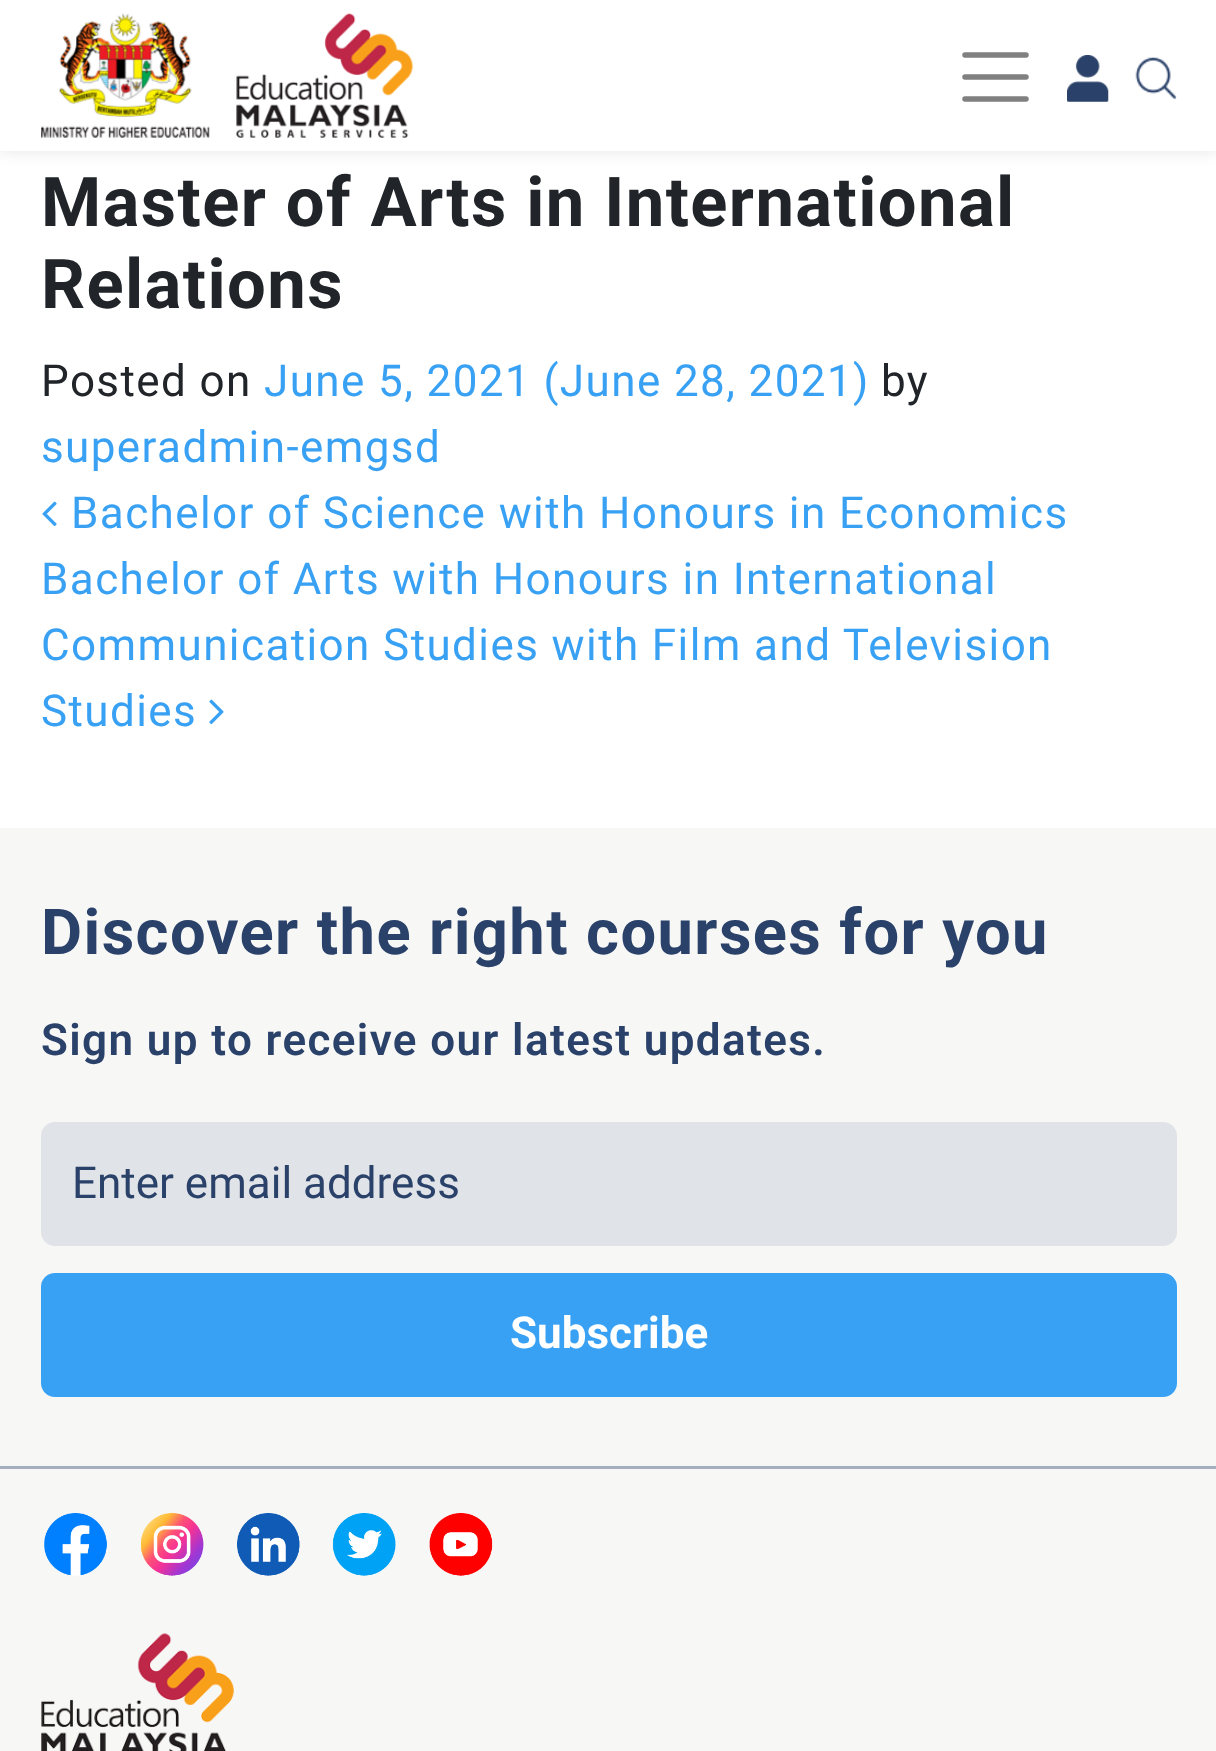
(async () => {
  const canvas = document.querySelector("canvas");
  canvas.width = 1216;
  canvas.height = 1751;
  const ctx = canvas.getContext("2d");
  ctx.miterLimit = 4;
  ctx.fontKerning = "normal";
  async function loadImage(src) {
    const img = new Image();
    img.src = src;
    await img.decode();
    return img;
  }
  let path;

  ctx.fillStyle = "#ffffff";
  ctx.fillRect(0, 0, 1216, 1751);
  ctx.fillStyle = "rgba(0, 0, 0, 0.1)";
  ctx.filter = "blur(8px)";
  ctx.beginPath();
  ctx.rect(0, 0, 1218, 151);
  ctx.fill();
  ctx.filter = "none";
  ctx.fillStyle = "#ffffff";
  ctx.fillRect(0, 0, 1216, 151);
  ctx.drawImage(await loadImage("img/1.png"), 41, 13, 169, 125);
  ctx.drawImage(await loadImage("img/2.png"), 236, 13, 178, 125);
  path = new Path2D("M965 55H1026M965 77H1026M965 99H1026");
  ctx.strokeStyle = "#808080";
  ctx.lineWidth = 5.5;
  ctx.lineCap = "round";
  ctx.stroke(path);
  ctx.drawImage(await loadImage("img/3.png"), 1067, 55, 42, 47);
  ctx.drawImage(await loadImage("img/4.png"), 1135, 57, 42, 42);
  ctx.drawImage(await loadImage("img/5.png"), 42, 501, 15, 26);
  ctx.drawImage(await loadImage("img/6.png"), 209, 699, 15, 26);
  ctx.fillStyle = "#f7f7f6";
  ctx.fillRect(0, 828, 1216, 923);
  ctx.fillStyle = "#e0e3e7";
  ctx.beginPath();
  ctx.roundRect(42.5, 1123.5, 1133, 121, 12.5);
  ctx.fill();
  ctx.strokeStyle = "#e0e3e7";
  ctx.lineWidth = 3;
  ctx.stroke();
  ctx.fillStyle = "#39a1f4";
  ctx.beginPath();
  ctx.roundRect(42.5, 1274.5, 1133, 121, 12.5);
  ctx.fill();
  ctx.strokeStyle = "#39a1f4";
  ctx.stroke();
  ctx.fillStyle = "#a5aebe";
  ctx.fillRect(0, 1466, 1216, 3);
  ctx.drawImage(await loadImage("img/7.png"), 44, 1513, 63, 63);
  ctx.drawImage(await loadImage("img/8.png"), 141, 1513, 63, 63);
  ctx.drawImage(await loadImage("img/9.png"), 237, 1513, 63, 63);
  ctx.drawImage(await loadImage("img/10.png"), 332, 1513, 64, 63);
  ctx.drawImage(await loadImage("img/11.png"), 429, 1513, 64, 63);
  ctx.drawImage(await loadImage("img/12.png"), 41, 1633, 193, 118);
  ctx.letterSpacing = "1.4px";
  ctx.font = "bold 68.75px Roboto";
  ctx.fillStyle = "#212529";
  ctx.fillText("Master of Arts in International", 41, 226);
  ctx.fillText("Relations", 41, 308);
  ctx.font = "44px Roboto";
  ctx.fillText("Posted on", 41, 396);
  ctx.fillStyle = "#39a1f4";
  ctx.fillText("June 5, 2021 (June 28, 2021)", 264, 396);
  ctx.fillStyle = "#212529";
  ctx.fillText("by", 881, 396);
  ctx.fillStyle = "#39a1f4";
  for (const [text, x, y] of [
    ["superadmin-emgsd", 41, 462],
    ["Bachelor of Science with Honours in Economics", 71, 528],
    ["Bachelor of Arts with Honours in International", 41, 594],
    ["Communication Studies with Film and Television", 41, 660],
    ["Studies", 41, 726],
  ]) {
    ctx.fillText(text, x, y);
  }
  ctx.font = "bold 63.25px Roboto";
  ctx.fillStyle = "#2a4169";
  ctx.fillText("Discover the right courses for you", 41, 954);
  ctx.font = "600 44px Roboto";
  ctx.fillText("Sign up to receive our latest updates.", 41, 1055);
  ctx.letterSpacing = "0px";
  ctx.font = "44px Roboto";
  ctx.fillText("Enter email address", 72, 1198);
  ctx.font = "bold 44px Roboto";
  ctx.fillStyle = "#ffffff";
  ctx.fillText("Subscribe", 510, 1348);
})();
